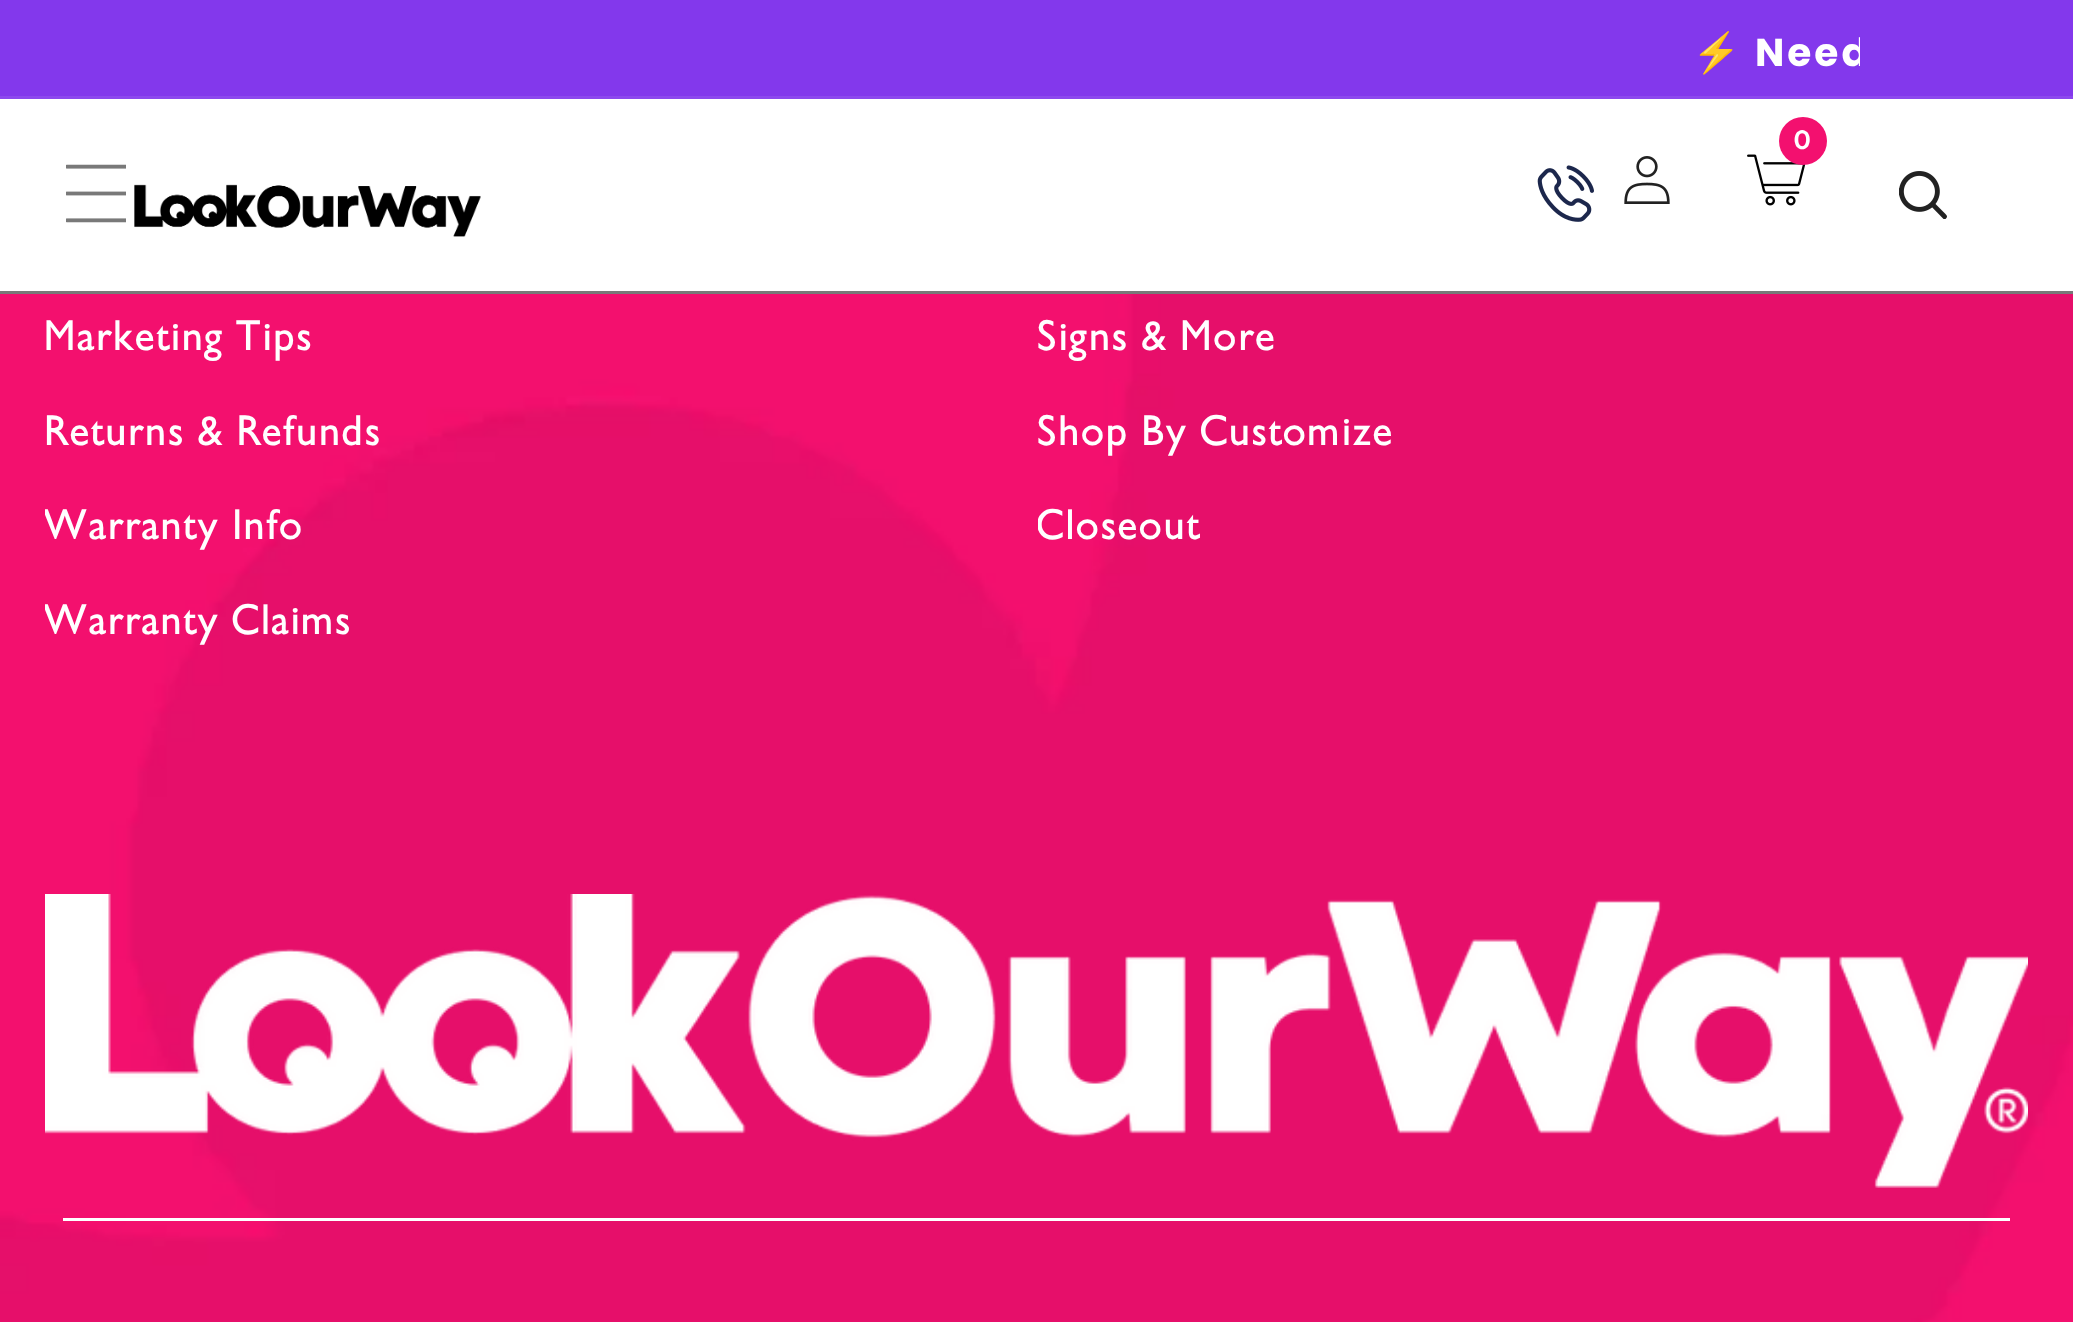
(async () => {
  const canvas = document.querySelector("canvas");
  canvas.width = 2073;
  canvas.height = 1322;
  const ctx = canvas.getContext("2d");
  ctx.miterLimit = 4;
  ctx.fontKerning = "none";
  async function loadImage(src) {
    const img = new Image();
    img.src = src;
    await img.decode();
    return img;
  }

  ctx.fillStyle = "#ffffff";
  ctx.fillRect(0, 0, 2073, 1322);
  for (const [x, y, w, h, color] of [
    [0, 291, 2073, 3, "#797979"],
    [0, 0, 2073, 96, "#8338ec"],
    [0, 96, 2073, 3, "#8d48ee"],
  ]) {
    ctx.fillStyle = color;
    ctx.fillRect(x, y, w, h);
  }
  ctx.drawImage(await loadImage("img/1.png"), 1747, 154, 59, 52);
  ctx.fillStyle = "#f3106f";
  ctx.beginPath();
  ctx.arc(1803, 141, 24, 0, Math.PI * 2);
  ctx.fill();
  ctx.drawImage(await loadImage("img/2.png"), 1537, 165, 57, 57);
  ctx.drawImage(await loadImage("img/3.png"), 1624, 156, 46, 48);
  ctx.drawImage(await loadImage("img/4.png"), 1899, 171, 48, 48);
  ctx.drawImage(await loadImage("img/5.png"), 66, 164, 60, 59);
  ctx.drawImage(await loadImage("img/6.png"), 134, 184, 347, 53);
  ctx.drawImage(await loadImage("img/7.png"), 0, 294, 2073, 1028);
  ctx.drawImage(await loadImage("img/8.png"), 45, 894, 1983, 294);
  ctx.fillStyle = "#ffffff";
  ctx.fillRect(63, 1218, 1947, 3);
  ctx.letterSpacing = "3px";
  ctx.font = "bold 39px Noto Color Emoji";
  ctx.fillText("⚡", 1692, 66);
  ctx.save();
  ctx.beginPath();
  ctx.rect(213, 0, 1647, 96);
  ctx.clip();
  ctx.font = "bold 39px Poppins";
  ctx.fillText("Need", 1755, 66);
  ctx.restore();
  ctx.letterSpacing = "1.75px";
  ctx.font = "500 27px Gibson";
  ctx.fillText("0", 1794, 149);
  ctx.font = "42px Gibson";
  ctx.fillText("Marketing Tips", 45, 350);
  ctx.fillText("Returns & Refunds", 45, 445);
  ctx.save();
  ctx.beginPath();
  ctx.rect(45, 495, 261, 66);
  ctx.clip();
  ctx.fillText("Warranty Info", 45, 539);
  ctx.restore();
  ctx.save();
  ctx.beginPath();
  ctx.rect(45, 588, 309, 66);
  ctx.clip();
  ctx.fillText("Warranty Claims", 45, 634);
  ctx.restore();
  ctx.fillText("Signs & More", 1037, 350);
  ctx.fillText("Shop By Customize", 1037, 445);
  ctx.save();
  ctx.beginPath();
  ctx.rect(1038, 495, 162, 66);
  ctx.clip();
  ctx.fillText("Closeout", 1037, 539);
  ctx.restore();
})();
